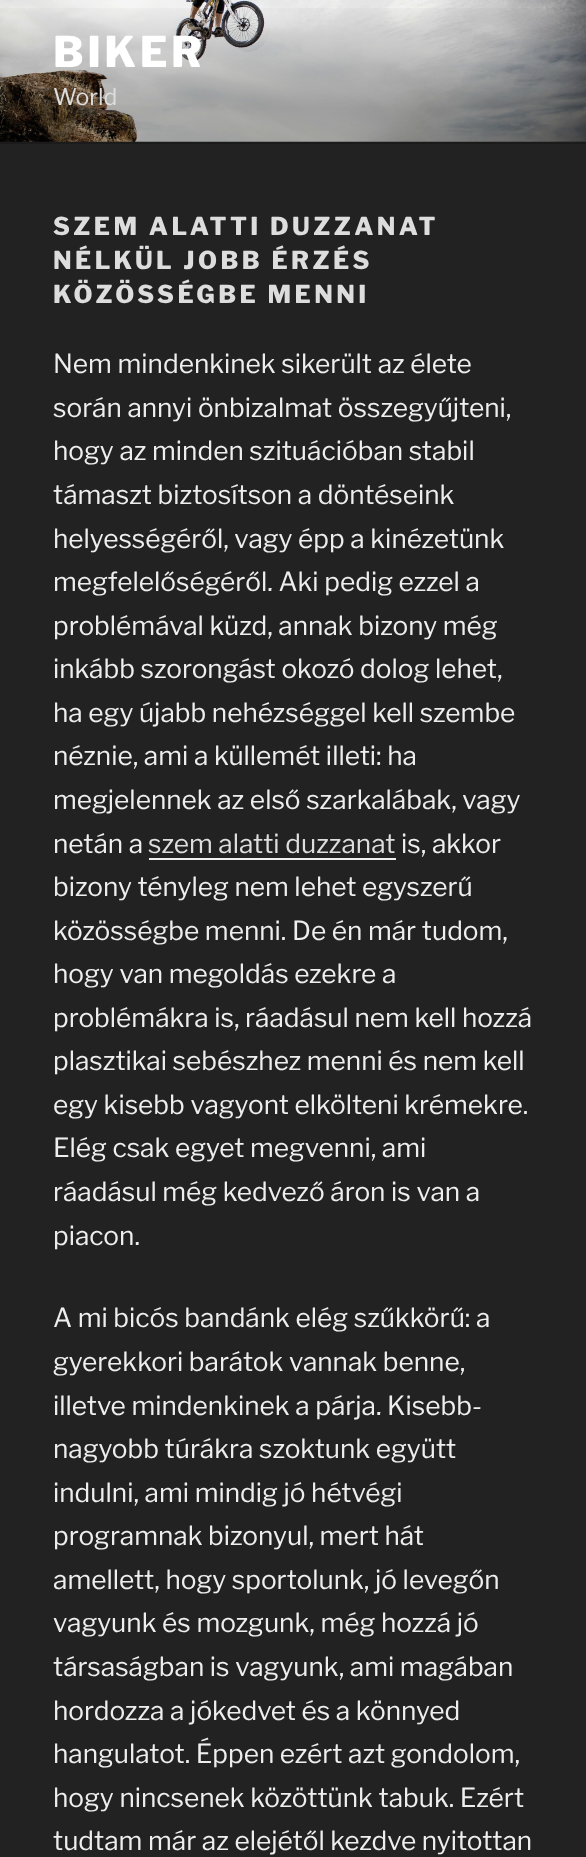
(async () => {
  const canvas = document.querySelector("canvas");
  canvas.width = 586;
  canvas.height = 1857;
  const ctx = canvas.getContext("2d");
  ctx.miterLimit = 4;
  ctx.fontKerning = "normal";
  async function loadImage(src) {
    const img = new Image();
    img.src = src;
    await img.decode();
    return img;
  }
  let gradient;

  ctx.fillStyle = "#222222";
  ctx.fillRect(0, 0, 586, 1857);
  ctx.fillStyle = "#262626";
  ctx.fillRect(0, 141, 586, 3);
  ctx.drawImage(await loadImage("img/1.png"), 0, 0, 586, 142);
  gradient = ctx.createLinearGradient(293, 0, 293, 144);
  gradient.addColorStop(0, "rgba(0, 0, 0, 0)");
  gradient.addColorStop(0.75, "rgba(0, 0, 0, 0.3)");
  gradient.addColorStop(1, "rgba(0, 0, 0, 0.3)");
  ctx.fillStyle = gradient;
  ctx.fillRect(0, 8, 586, 136);
  ctx.fillStyle = "#f0f0f0";
  ctx.fillRect(149, 858, 247, 2);
  ctx.letterSpacing = "3.5px";
  ctx.font = "100 42px Libre Franklin";
  ctx.fillStyle = "#ffffff";
  ctx.fillText("BIKER", 53, 67);
  ctx.letterSpacing = "0px";
  ctx.font = "100 23px 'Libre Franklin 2'";
  ctx.fillStyle = "#dddddd";
  ctx.fillText("World", 53, 105);
  ctx.letterSpacing = "3.4px";
  ctx.font = "100 24.5px Libre Franklin";
  for (const [text, x, y] of [
    ["SZEM ALATTI DUZZANAT", 53, 235],
    ["NÉLKÜL JOBB ÉRZÉS", 53, 269],
    ["KÖZÖSSÉGBE MENNI", 53, 303],
  ]) {
    ctx.fillText(text, x, y);
  }
  ctx.letterSpacing = "0px";
  ctx.font = "100 26.25px 'Libre Franklin 2'";
  ctx.fillStyle = "#eeeeee";
  for (const [text, x, y] of [
    ["Nem mindenkinek sikerült az élete", 53, 373],
    ["során annyi önbizalmat összegyűjteni,", 53, 417],
    ["hogy az minden szituációban stabil", 53, 460],
    ["támaszt biztosítson a döntéseink", 53, 504],
    ["helyességéről, vagy épp a kinézetünk", 53, 548],
    ["megfelelőségéről. Aki pedig ezzel a", 53, 591],
    ["problémával küzd, annak bizony még", 53, 635],
    ["inkább szorongást okozó dolog lehet,", 53, 678],
    ["ha egy újabb nehézséggel kell szembe", 53, 722],
    ["néznie, ami a küllemét illeti: ha", 53, 765],
    ["megjelennek az első szarkalábak, vagy", 53, 809],
    ["netán a", 53, 853],
  ]) {
    ctx.fillText(text, x, y);
  }
  ctx.fillStyle = "#dddddd";
  ctx.fillText("szem alatti duzzanat", 148, 853);
  ctx.fillStyle = "#eeeeee";
  for (const [text, x, y] of [
    ["is, akkor", 401, 853],
    ["bizony tényleg nem lehet egyszerű", 53, 896],
    ["közösségbe menni. De én már tudom,", 53, 940],
    ["hogy van megoldás ezekre a", 53, 983],
    ["problémákra is, ráadásul nem kell hozzá", 53, 1027],
    ["plasztikai sebészhez menni és nem kell", 53, 1070],
    ["egy kisebb vagyont elkölteni krémekre.", 53, 1114],
    ["Elég csak egyet megvenni, ami", 53, 1157],
    ["ráadásul még kedvező áron is van a", 53, 1201],
    ["piacon.", 53, 1245],
    ["A mi bicós bandánk elég szűkkörű: a", 53, 1327],
    ["gyerekkori barátok vannak benne,", 53, 1371],
    ["illetve mindenkinek a párja. Kisebb-", 53, 1415],
    ["nagyobb túrákra szoktunk együtt", 53, 1458],
    ["indulni, ami mindig jó hétvégi", 53, 1502],
    ["programnak bizonyul, mert hát", 53, 1545],
    ["amellett, hogy sportolunk, jó levegőn", 53, 1589],
    ["vagyunk és mozgunk, még hozzá jó", 53, 1632],
    ["társaságban is vagyunk, ami magában", 53, 1676],
    ["hordozza a jókedvet és a könnyed", 53, 1720],
    ["hangulatot. Éppen ezért azt gondolom,", 53, 1763],
    ["hogy nincsenek közöttünk tabuk. Ezért", 53, 1807],
    ["tudtam már az elejétől kezdve nyitottan", 53, 1850],
  ]) {
    ctx.fillText(text, x, y);
  }
})();
